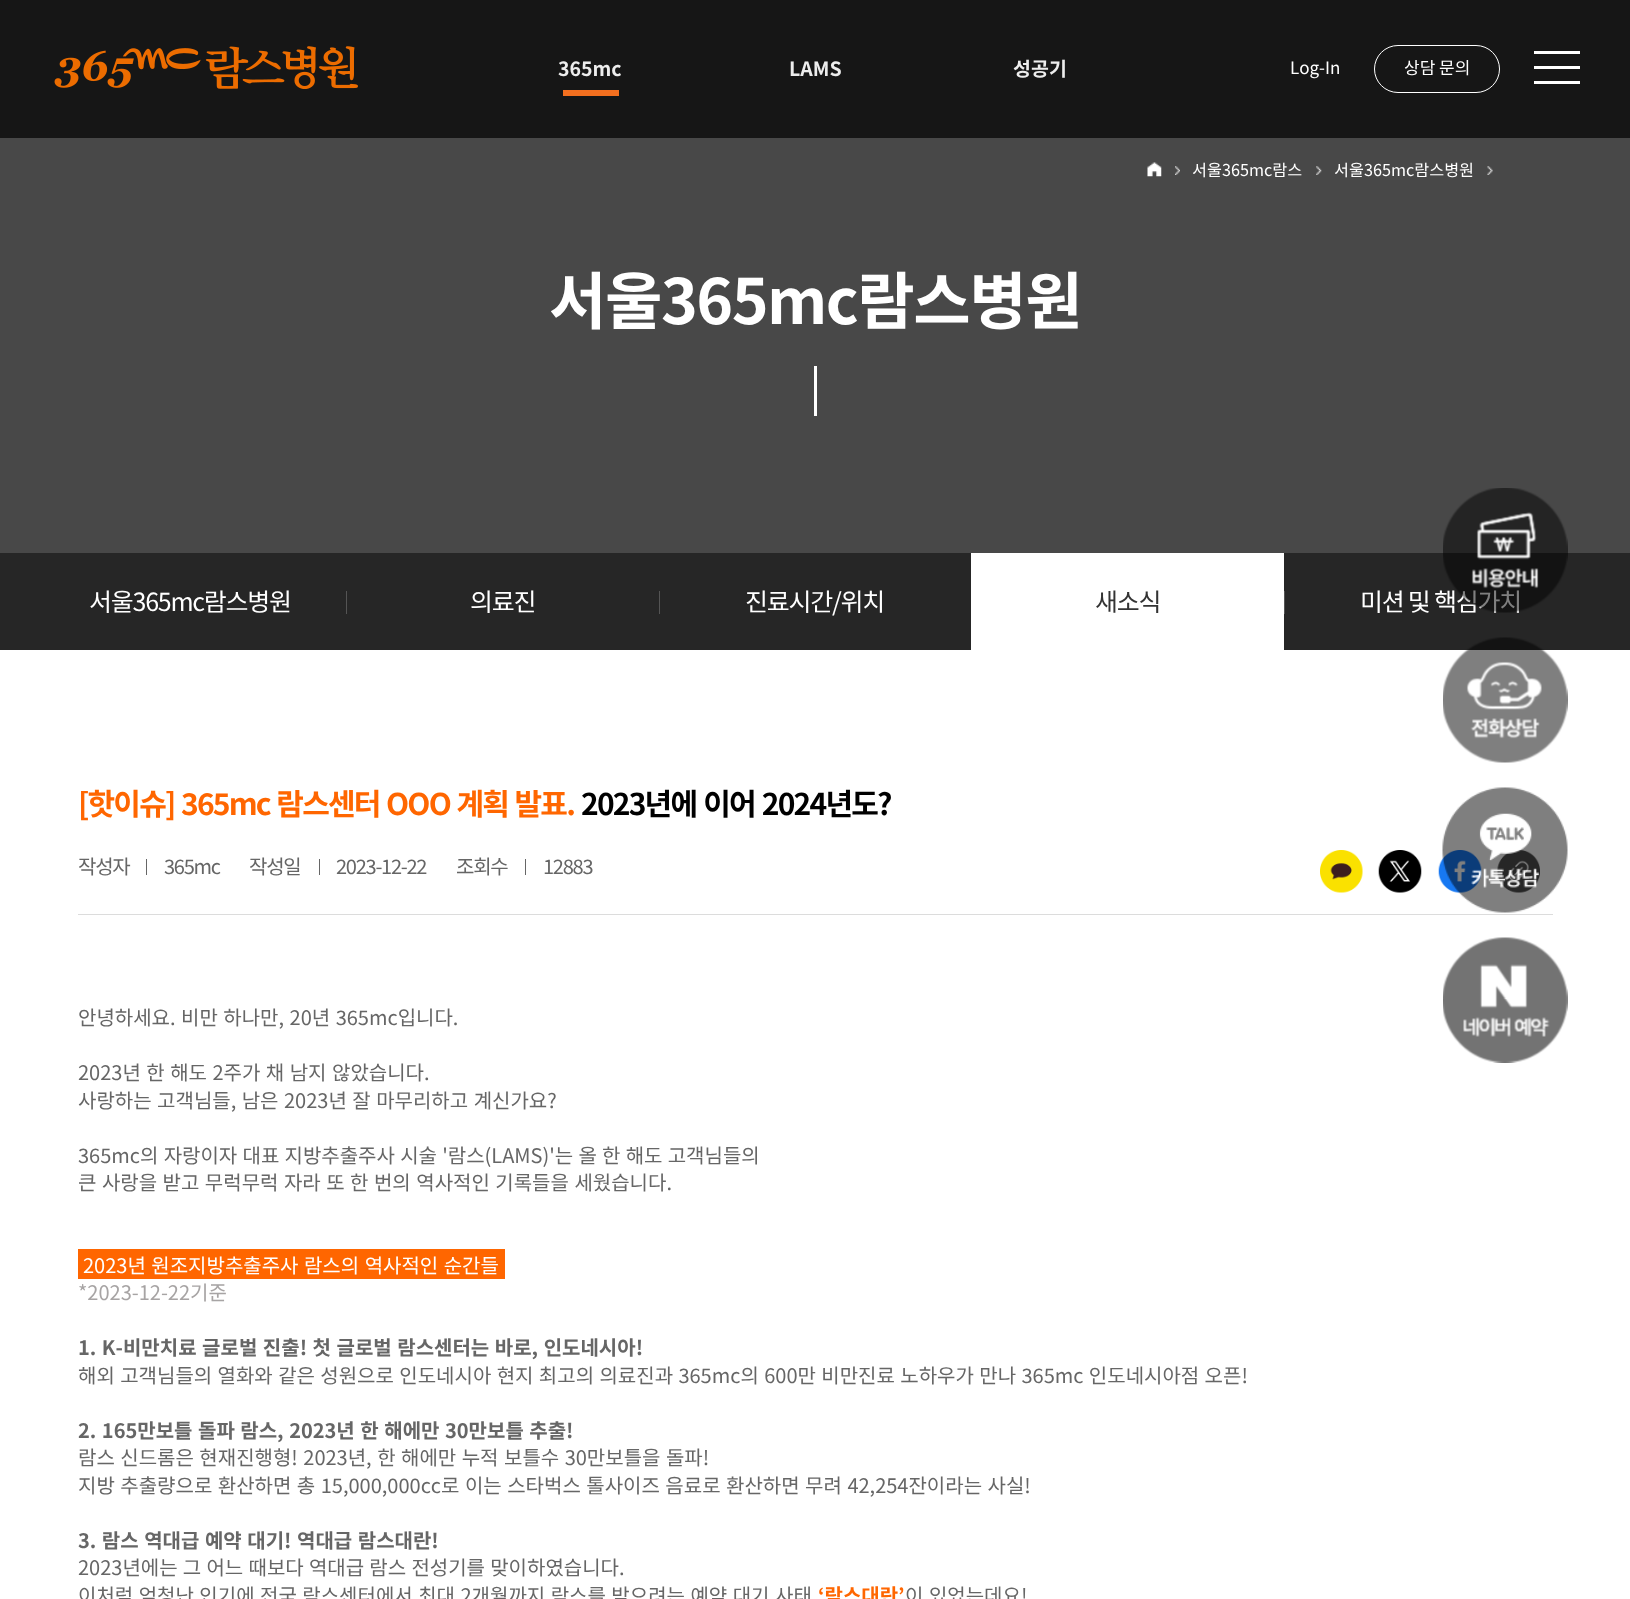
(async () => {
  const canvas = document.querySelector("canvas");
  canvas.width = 1630;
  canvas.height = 1599;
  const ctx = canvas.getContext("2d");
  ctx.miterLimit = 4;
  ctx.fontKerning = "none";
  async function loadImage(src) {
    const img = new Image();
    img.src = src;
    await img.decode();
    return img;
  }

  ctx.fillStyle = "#ffffff";
  ctx.fillRect(0, 0, 1630, 1599);
  ctx.fillStyle = "#161616";
  ctx.fillRect(0, 0, 1630, 138);
  ctx.drawImage(await loadImage("img/1.png"), 54, 46, 304, 43);
  ctx.fillStyle = "#f36f1f";
  ctx.fillRect(563, 90, 56, 6);
  ctx.beginPath();
  ctx.roundRect(1374.5, 45.5, 125, 47, 23.5);
  ctx.strokeStyle = "#ffffff";
  ctx.stroke();
  for (const [x, y, w, h, color] of [
    [1534, 51, 46, 3, "#ffffff"],
    [1534, 66, 46, 3, "#ffffff"],
    [1534, 81, 46, 3, "#ffffff"],
    [0, 138, 1630, 415, "#484848"],
  ]) {
    ctx.fillStyle = color;
    ctx.fillRect(x, y, w, h);
  }
  ctx.drawImage(await loadImage("img/2.png"), 1175, 166, 5, 9);
  ctx.drawImage(await loadImage("img/3.png"), 1147, 162, 15, 15);
  ctx.drawImage(await loadImage("img/4.png"), 1316, 166, 6, 9);
  ctx.drawImage(await loadImage("img/5.png"), 1487, 166, 6, 9);
  for (const [x, y, w, h, color] of [
    [814, 366, 3, 50, "#ffffff"],
    [0, 553, 1630, 97, "#262626"],
    [346, 591, 1, 23, "#545454"],
    [659, 591, 1, 23, "#545454"],
    [971, 553, 313, 97, "#ffffff"],
    [1284, 591, 1, 23, "#545454"],
    [146, 859, 1, 16, "#666666"],
    [319, 859, 1, 16, "#666666"],
    [525, 859, 1, 16, "#666666"],
  ]) {
    ctx.fillStyle = color;
    ctx.fillRect(x, y, w, h);
  }
  ctx.drawImage(await loadImage("img/6.png"), 1320, 850, 43, 43);
  ctx.drawImage(await loadImage("img/7.png"), 1378, 850, 44, 43);
  ctx.drawImage(await loadImage("img/8.png"), 1438, 850, 44, 43);
  ctx.drawImage(await loadImage("img/9.png"), 1497, 850, 43, 43);
  ctx.fillStyle = "#dcdcdc";
  ctx.fillRect(78, 914, 1475, 1);
  ctx.fillStyle = "#ff6600";
  ctx.fillRect(78, 1249, 427, 30);
  ctx.drawImage(await loadImage("img/11.png"), 1443, 637, 125, 126);
  ctx.drawImage(await loadImage("img/12.png"), 1442, 787, 126, 126);
  ctx.drawImage(await loadImage("img/13.png"), 1443, 937, 125, 126);
  ctx.font = "bold 19.5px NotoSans";
  ctx.fillStyle = "#ededed";
  for (const [text, x, y] of [
    ["365mc", 558, 76],
    ["LAMS", 789, 76],
    ["성공기", 1013, 76],
  ]) {
    ctx.fillText(text, x, y);
  }
  ctx.font = "17px NotoSans";
  ctx.fillStyle = "#ffffff";
  ctx.fillText("Log-In", 1290, 74);
  ctx.fillText("상담 문의", 1404, 74);
  ctx.font = "16.25px NotoSans";
  ctx.fillText("서울365mc람스", 1192, 176);
  ctx.fillText("서울365mc람스병원", 1334, 176);
  ctx.letterSpacing = "-1.5px";
  ctx.font = "bold 62.5px NotoSans";
  ctx.fillText("서울365mc람스병원", 549, 324);
  ctx.letterSpacing = "-1.25px";
  ctx.font = "25px NotoSans";
  for (const [text, x, y] of [
    ["서울365mc람스병원", 89, 611],
    ["의료진", 470, 611],
    ["진료시간/위치", 745, 611],
  ]) {
    ctx.fillText(text, x, y);
  }
  ctx.fillStyle = "#333333";
  ctx.fillText("새소식", 1095, 611);
  ctx.fillStyle = "#ffffff";
  ctx.fillText("미션 및 핵심가치", 1360, 611);
  ctx.letterSpacing = "-1.8px";
  ctx.wordSpacing = "1.5px";
  ctx.font = "bold 30px Noto Sans KR";
  ctx.fillStyle = "#ff6600";
  ctx.fillText("[핫이슈] 365mc 람스센터 OOO 계획 발표.", 78, 815);
  ctx.wordSpacing = "2px";
  ctx.fillStyle = "#000000";
  ctx.fillText("2023년에 이어 2024년도?", 581, 815);
  ctx.letterSpacing = "-1.25px";
  ctx.wordSpacing = "0px";
  ctx.font = "20px Noto Sans KR";
  ctx.fillStyle = "#666666";
  for (const [text, x, y] of [
    ["작성자", 78, 874],
    ["365mc", 164, 874],
    ["작성일", 249, 874],
    ["2023-12-22", 336, 874],
    ["조회수", 456, 874],
    ["12883", 543, 874],
  ]) {
    ctx.fillText(text, x, y);
  }
  ctx.letterSpacing = "0px";
  ctx.wordSpacing = "1px";
  for (const [text, x, y] of [
    ["안녕하세요. 비만 하나만, 20년 365mc입니다.", 78, 1025],
    ["2023년 한 해도 2주가 채 남지 않았습니다.", 78, 1080],
    ["사랑하는 고객님들, 남은 2023년 잘 마무리하고 계신가요?", 78, 1108],
  ]) {
    ctx.fillText(text, x, y);
  }
  ctx.wordSpacing = "0.75px";
  ctx.fillText("365mc의 자랑이자 대표 지방추출주사 시술 '람스(LAMS)'는 올 한 해도 고객님들의", 78, 1163);
  ctx.wordSpacing = "1px";
  ctx.fillText("큰 사랑을 받고 무럭무럭 자라 또 한 번의 역사적인 기록들을 세웠습니다.", 78, 1190);
  ctx.fillStyle = "#ffffff";
  ctx.fillText("2023년 원조지방추출주사 람스의 역사적인 순간들", 83, 1273);
  ctx.wordSpacing = "0px";
  ctx.fillStyle = "#a7a4a4";
  ctx.fillText("*2023-12-22기준", 78, 1300);
  ctx.wordSpacing = "1px";
  ctx.font = "bold 20px Noto Sans KR";
  ctx.fillStyle = "#666666";
  ctx.fillText("1. K-비만치료 글로벌 진출! 첫 글로벌 람스센터는 바로, 인도네시아!", 78, 1355);
  ctx.wordSpacing = "0.9px";
  ctx.font = "20px Noto Sans KR";
  ctx.fillText("해외 고객님들의 열화와 같은 성원으로 인도네시아 현지 최고의 의료진과 365mc의 600만 비만진료 노하우가 만나 365mc 인도네시아점 오픈!", 78, 1383);
  ctx.wordSpacing = "1px";
  ctx.font = "bold 20px Noto Sans KR";
  ctx.fillText("2. 165만보틀 돌파 람스, 2023년 한 해에만 30만보틀 추출!", 78, 1438);
  ctx.font = "20px Noto Sans KR";
  ctx.fillText("람스 신드롬은 현재진행형! 2023년, 한 해에만 누적 보틀수 30만보틀을 돌파!", 78, 1465);
  ctx.fillText("지방 추출량으로 환산하면 총 15,000,000cc로 이는 스타벅스 톨사이즈 음료로 환산하면 무려 42,254잔이라는 사실!", 78, 1493);
  ctx.font = "bold 20px Noto Sans KR";
  ctx.fillText("3. 람스 역대급 예약 대기! 역대급 람스대란!", 78, 1548);
  ctx.wordSpacing = "0.75px";
  ctx.font = "20px Noto Sans KR";
  ctx.fillText("2023년에는 그 어느 때보다 역대급 람스 전성기를 맞이하였습니다.", 78, 1575);
  ctx.wordSpacing = "1px";
  ctx.fillText("이처럼 엄청난 인기에 전국 람스센터에서 최대 2개월까지 람스를 받으려는 예약 대기 사태", 78, 1603);
  ctx.wordSpacing = "0px";
  ctx.font = "bold 20px Noto Sans KR";
  ctx.fillStyle = "#ff6600";
  ctx.fillText("‘람스대란’", 818, 1603);
  ctx.wordSpacing = "1px";
  ctx.font = "20px Noto Sans KR";
  ctx.fillStyle = "#666666";
  ctx.fillText("이 있었는데요!", 905, 1603);
  ctx.drawImage(await loadImage("img/10.png"), 1443, 488, 125, 125);
})();
